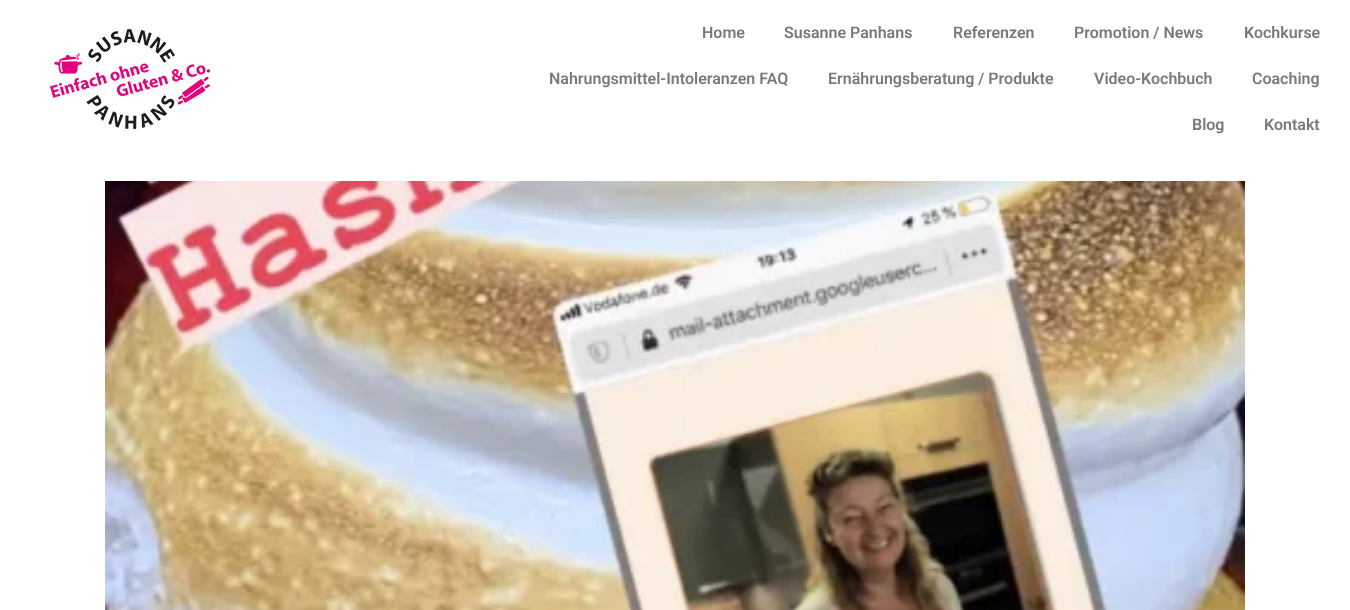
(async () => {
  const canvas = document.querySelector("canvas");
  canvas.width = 1350;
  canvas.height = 610;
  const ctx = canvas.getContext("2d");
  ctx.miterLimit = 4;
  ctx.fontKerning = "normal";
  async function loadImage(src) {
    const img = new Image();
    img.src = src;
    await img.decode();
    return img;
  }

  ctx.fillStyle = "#ffffff";
  ctx.fillRect(0, 0, 1350, 610);
  ctx.drawImage(await loadImage("img/1.png"), 50, 29, 160, 100);
  ctx.drawImage(await loadImage("img/2.png"), 105, 181, 1140, 429);
  ctx.font = "600 16px Roboto";
  ctx.fillStyle = "#7a7a7a";
  for (const [text, x, y] of [
    ["Home", 702, 38],
    ["Susanne Panhans", 784, 38],
    ["Referenzen", 953, 38],
    ["Promotion / News", 1074, 38],
    ["Kochkurse", 1244, 38],
    ["Nahrungsmittel-Intoleranzen FAQ", 549, 84],
    ["Ernährungsberatung / Produkte", 828, 84],
    ["Video-Kochbuch", 1094, 84],
    ["Coaching", 1252, 84],
    ["Blog", 1192, 130],
    ["Kontakt", 1264, 130],
  ]) {
    ctx.fillText(text, x, y);
  }
})();
